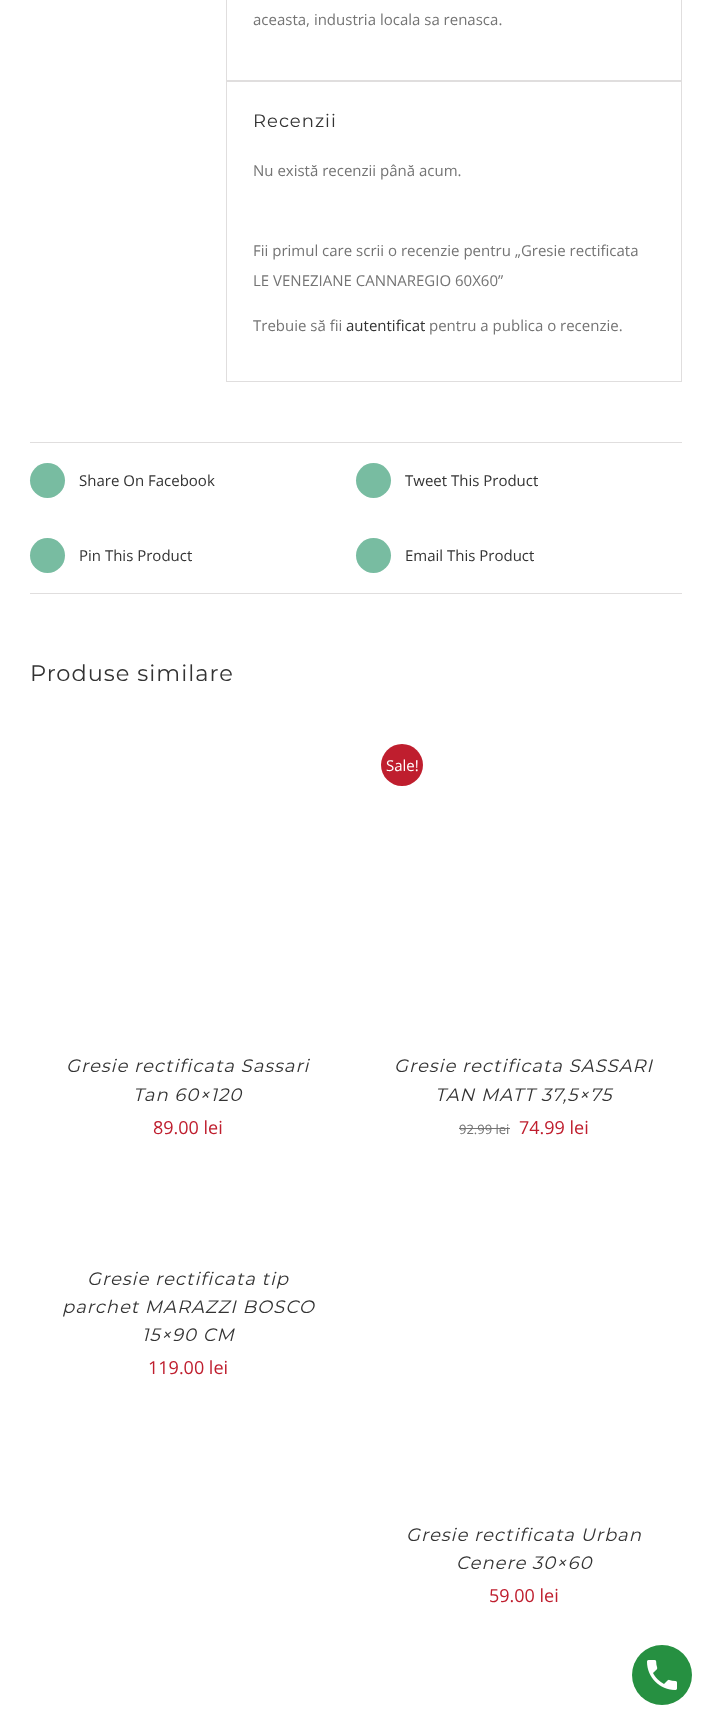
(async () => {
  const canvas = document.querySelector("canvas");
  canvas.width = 712;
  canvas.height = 1725;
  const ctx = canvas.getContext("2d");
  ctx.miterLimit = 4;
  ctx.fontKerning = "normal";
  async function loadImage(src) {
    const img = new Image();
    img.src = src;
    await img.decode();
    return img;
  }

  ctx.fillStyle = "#ffffff";
  ctx.fillRect(0, 0, 712, 1725);
  ctx.strokeStyle = "#e0dede";
  ctx.strokeRect(226.5, -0.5, 455, 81);
  ctx.strokeRect(226.5, 81.5, 455, 300);
  ctx.fillStyle = "#e0dede";
  ctx.fillRect(30, 442, 652, 1);
  ctx.fillRect(30, 593, 652, 1);
  ctx.fillStyle = "#78bca1";
  ctx.beginPath();
  ctx.arc(47.5, 480.5, 17.5, 0, Math.PI * 2);
  ctx.fill();
  ctx.beginPath();
  ctx.arc(373.5, 480.5, 17.5, 0, Math.PI * 2);
  ctx.fill();
  ctx.beginPath();
  ctx.arc(47.5, 555.5, 17.5, 0, Math.PI * 2);
  ctx.fill();
  ctx.beginPath();
  ctx.arc(373.5, 555.5, 17.5, 0, Math.PI * 2);
  ctx.fill();
  ctx.fillStyle = "#bf1e2e";
  ctx.beginPath();
  ctx.arc(402, 765, 21, 0, Math.PI * 2);
  ctx.fill();
  ctx.fillStyle = "#747474";
  ctx.fillRect(459, 1128, 51, 1);
  ctx.fillStyle = "#269041";
  ctx.beginPath();
  ctx.arc(662, 1675, 30, 0, Math.PI * 2);
  ctx.fill();
  ctx.drawImage(await loadImage("img/1.png"), 647, 1660, 30, 30);
  ctx.font = "15px Open Sans";
  ctx.fillStyle = "#747474";
  ctx.fillText("aceasta, industria locala sa renasca.", 253, 25);
  ctx.letterSpacing = "1px";
  ctx.font = "100 18px Montserrat";
  ctx.fillStyle = "#333333";
  ctx.fillText("Recenzii", 253, 127);
  ctx.letterSpacing = "0px";
  ctx.font = "15px Open Sans";
  ctx.fillStyle = "#747474";
  for (const [text, x, y] of [
    ["Nu există recenzii până acum.", 253, 176],
    ["Fii primul care scrii o recenzie pentru „Gresie rectificata", 253, 256],
    ["LE VENEZIANE CANNAREGIO 60X60”", 253, 286],
    ["Trebuie să fii", 253, 331],
  ]) {
    ctx.fillText(text, x, y);
  }
  ctx.fillStyle = "#333333";
  ctx.fillText("autentificat", 346, 331);
  ctx.fillStyle = "#747474";
  ctx.fillText("pentru a publica o recenzie.", 429, 331);
  ctx.fillStyle = "#333333";
  for (const [text, x, y] of [
    ["Share On Facebook", 79, 486],
    ["Tweet This Product", 405, 486],
    ["Pin This Product", 79, 561],
    ["Email This Product", 405, 561],
  ]) {
    ctx.fillText(text, x, y);
  }
  ctx.letterSpacing = "1px";
  ctx.font = "100 22.5px Montserrat";
  ctx.fillText("Produse similare", 30, 681);
  ctx.font = "italic 100 18px Montserrat";
  ctx.fillText("Gresie rectificata Sassari", 66, 1072);
  ctx.fillText("Tan 60×120", 133, 1101);
  ctx.letterSpacing = "0px";
  ctx.font = "18px Open Sans";
  ctx.fillStyle = "#bf1e2e";
  ctx.fillText("89.00 lei", 153, 1134);
  ctx.font = "15px Open Sans";
  ctx.fillStyle = "#ffffff";
  ctx.fillText("Sale!", 386, 771);
  ctx.letterSpacing = "1px";
  ctx.font = "italic 100 18px Montserrat";
  ctx.fillStyle = "#333333";
  ctx.fillText("Gresie rectificata SASSARI", 394, 1072);
  ctx.fillText("TAN MATT 37,5×75", 435, 1101);
  ctx.letterSpacing = "0px";
  ctx.font = "13px Open Sans";
  ctx.fillStyle = "#747474";
  ctx.fillText("92.99 lei", 459, 1134);
  ctx.font = "18px Open Sans";
  ctx.fillStyle = "#bf1e2e";
  ctx.fillText("74.99 lei", 519, 1134);
  ctx.letterSpacing = "1px";
  ctx.font = "italic 100 18px Montserrat";
  ctx.fillStyle = "#333333";
  for (const [text, x, y] of [
    ["Gresie rectificata tip", 87, 1285],
    ["parchet MARAZZI BOSCO", 62, 1313],
    ["15×90 CM", 142, 1341],
  ]) {
    ctx.fillText(text, x, y);
  }
  ctx.letterSpacing = "0px";
  ctx.font = "18px Open Sans";
  ctx.fillStyle = "#bf1e2e";
  ctx.fillText("119.00 lei", 148, 1374);
  ctx.letterSpacing = "1px";
  ctx.font = "italic 100 18px Montserrat";
  ctx.fillStyle = "#333333";
  ctx.fillText("Gresie rectificata Urban", 406, 1541);
  ctx.fillText("Cenere 30×60", 456, 1569);
  ctx.letterSpacing = "0px";
  ctx.font = "18px Open Sans";
  ctx.fillStyle = "#bf1e2e";
  ctx.fillText("59.00 lei", 489, 1602);
})();
